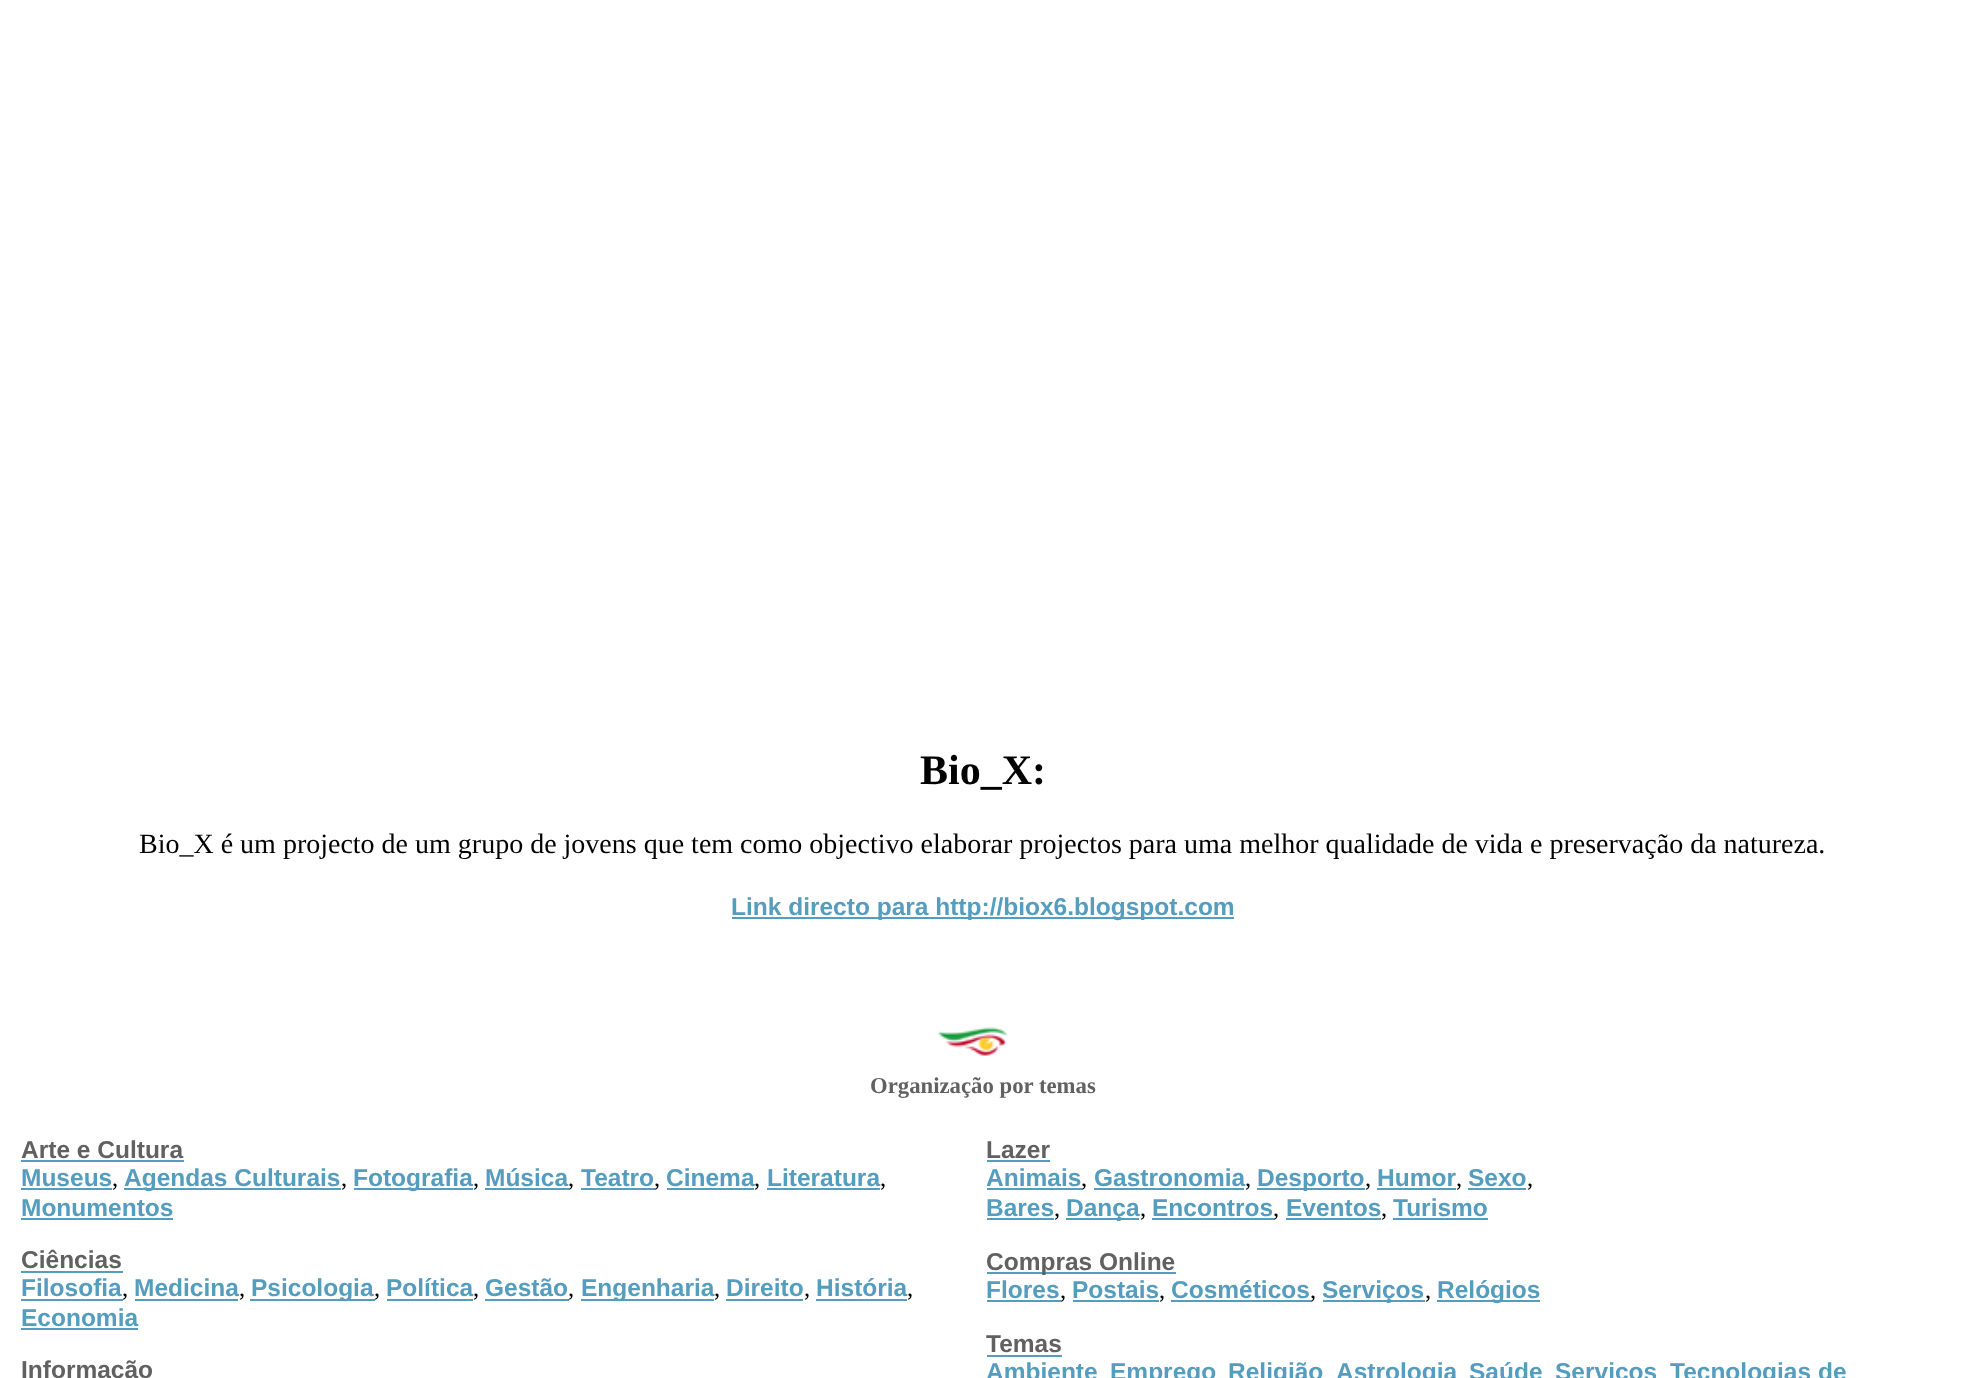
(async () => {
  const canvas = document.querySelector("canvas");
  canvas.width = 1964;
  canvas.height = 1378;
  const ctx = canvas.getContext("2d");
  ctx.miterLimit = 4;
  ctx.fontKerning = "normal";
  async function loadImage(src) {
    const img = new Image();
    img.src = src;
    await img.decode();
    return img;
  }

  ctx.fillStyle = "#ffffff";
  ctx.fillRect(0, 0, 1964, 1378);
  ctx.fillStyle = "#559dbf";
  ctx.fillRect(732, 917, 502, 2);
  ctx.drawImage(await loadImage("img/1.png"), 937, 1027, 71, 29);
  for (const [x, y, w, h, color] of [
    [21, 1160, 163, 2, "#559dbf"],
    [21, 1188, 91, 2, "#559dbf"],
    [124, 1188, 217, 2, "#559dbf"],
    [354, 1188, 119, 2, "#559dbf"],
    [485, 1188, 84, 2, "#559dbf"],
    [581, 1188, 74, 2, "#559dbf"],
    [667, 1188, 87, 2, "#559dbf"],
    [767, 1188, 113, 2, "#559dbf"],
    [21, 1218, 152, 2, "#559dbf"],
    [21, 1271, 102, 2, "#559dbf"],
    [21, 1299, 102, 2, "#559dbf"],
    [135, 1299, 103, 2, "#559dbf"],
    [250, 1299, 125, 2, "#559dbf"],
    [387, 1299, 86, 2, "#559dbf"],
    [485, 1299, 84, 2, "#559dbf"],
    [581, 1299, 133, 2, "#559dbf"],
    [726, 1299, 77, 2, "#559dbf"],
    [816, 1299, 91, 2, "#559dbf"],
    [21, 1328, 117, 2, "#559dbf"],
    [987, 1160, 63, 2, "#559dbf"],
    [987, 1188, 95, 2, "#559dbf"],
    [1094, 1188, 150, 2, "#559dbf"],
    [1257, 1188, 108, 2, "#559dbf"],
    [1377, 1188, 79, 2, "#559dbf"],
    [1468, 1188, 58, 2, "#559dbf"],
    [987, 1218, 67, 2, "#559dbf"],
    [1066, 1218, 73, 2, "#559dbf"],
    [1152, 1218, 122, 2, "#559dbf"],
    [1286, 1218, 95, 2, "#559dbf"],
    [1393, 1218, 95, 2, "#559dbf"],
    [987, 1272, 189, 2, "#559dbf"],
    [987, 1300, 74, 2, "#559dbf"],
    [1073, 1300, 86, 2, "#559dbf"],
    [1171, 1300, 140, 2, "#559dbf"],
    [1323, 1300, 102, 2, "#559dbf"],
    [1437, 1300, 103, 2, "#559dbf"],
    [987, 1355, 75, 2, "#559dbf"],
  ]) {
    ctx.fillStyle = color;
    ctx.fillRect(x, y, w, h);
  }
  ctx.font = "bold 42px Liberation Serif";
  ctx.fillStyle = "#000000";
  ctx.fillText("Bio_X:", 920, 784);
  ctx.font = "28px Liberation Serif";
  ctx.fillText("Bio_X é um projecto de um grupo de jovens que tem como objectivo elaborar projectos para uma melhor qualidade de vida e preservação da natureza.", 139, 853);
  ctx.font = "bold 24.5px Liberation Sans";
  ctx.fillStyle = "#559dbf";
  ctx.fillText("Link directo para http://biox6.blogspot.com", 731, 915);
  ctx.font = "bold 22.75px Liberation Serif";
  ctx.fillStyle = "#616161";
  ctx.fillText("Organização por temas", 870, 1093);
  ctx.font = "bold 24.5px Liberation Sans";
  ctx.fillText("Arte e Cultura", 21, 1158);
  ctx.fillStyle = "#559dbf";
  ctx.fillText("Museus", 21, 1186);
  ctx.font = "24.5px Liberation Serif";
  ctx.fillStyle = "#000000";
  ctx.fillText(",", 112, 1186);
  ctx.font = "bold 24.5px Liberation Sans";
  ctx.fillStyle = "#559dbf";
  ctx.fillText("Agendas Culturais", 124, 1186);
  ctx.font = "24.5px Liberation Serif";
  ctx.fillStyle = "#000000";
  ctx.fillText(",", 341, 1186);
  ctx.font = "bold 24.5px Liberation Sans";
  ctx.fillStyle = "#559dbf";
  ctx.fillText("Fotografia", 353, 1186);
  ctx.font = "24.5px Liberation Serif";
  ctx.fillStyle = "#000000";
  ctx.fillText(",", 473, 1186);
  ctx.font = "bold 24.5px Liberation Sans";
  ctx.fillStyle = "#559dbf";
  ctx.fillText("Música", 485, 1186);
  ctx.font = "24.5px Liberation Serif";
  ctx.fillStyle = "#000000";
  ctx.fillText(",", 568, 1186);
  ctx.font = "bold 24.5px Liberation Sans";
  ctx.fillStyle = "#559dbf";
  ctx.fillText("Teatro", 581, 1186);
  ctx.font = "24.5px Liberation Serif";
  ctx.fillStyle = "#000000";
  ctx.fillText(",", 654, 1186);
  ctx.font = "bold 24.5px Liberation Sans";
  ctx.fillStyle = "#559dbf";
  ctx.fillText("Cinema", 666, 1186);
  ctx.font = "24.5px Liberation Serif";
  ctx.fillStyle = "#000000";
  ctx.fillText(",", 754, 1186);
  ctx.font = "bold 24.5px Liberation Sans";
  ctx.fillStyle = "#559dbf";
  ctx.fillText("Literatura", 767, 1186);
  ctx.font = "24.5px Liberation Serif";
  ctx.fillStyle = "#000000";
  ctx.fillText(",", 880, 1186);
  ctx.font = "bold 24.5px Liberation Sans";
  ctx.fillStyle = "#559dbf";
  ctx.fillText("Monumentos", 21, 1216);
  ctx.fillStyle = "#616161";
  ctx.fillText("Ciências", 21, 1268);
  ctx.fillStyle = "#559dbf";
  ctx.fillText("Filosofia", 21, 1296);
  ctx.font = "24.5px Liberation Serif";
  ctx.fillStyle = "#000000";
  ctx.fillText(",", 122, 1296);
  ctx.font = "bold 24.5px Liberation Sans";
  ctx.fillStyle = "#559dbf";
  ctx.fillText("Medicina", 134, 1296);
  ctx.font = "24.5px Liberation Serif";
  ctx.fillStyle = "#000000";
  ctx.fillText(",", 239, 1296);
  ctx.font = "bold 24.5px Liberation Sans";
  ctx.fillStyle = "#559dbf";
  ctx.fillText("Psicologia", 251, 1296);
  ctx.font = "24.5px Liberation Serif";
  ctx.fillStyle = "#000000";
  ctx.fillText(",", 374, 1296);
  ctx.font = "bold 24.5px Liberation Sans";
  ctx.fillStyle = "#559dbf";
  ctx.fillText("Política", 386, 1296);
  ctx.font = "24.5px Liberation Serif";
  ctx.fillStyle = "#000000";
  ctx.fillText(",", 473, 1296);
  ctx.font = "bold 24.5px Liberation Sans";
  ctx.fillStyle = "#559dbf";
  ctx.fillText("Gestão", 485, 1296);
  ctx.font = "24.5px Liberation Serif";
  ctx.fillStyle = "#000000";
  ctx.fillText(",", 568, 1296);
  ctx.font = "bold 24.5px Liberation Sans";
  ctx.fillStyle = "#559dbf";
  ctx.fillText("Engenharia", 581, 1296);
  ctx.font = "24.5px Liberation Serif";
  ctx.fillStyle = "#000000";
  ctx.fillText(",", 714, 1296);
  ctx.font = "bold 24.5px Liberation Sans";
  ctx.fillStyle = "#559dbf";
  ctx.fillText("Direito", 726, 1296);
  ctx.font = "24.5px Liberation Serif";
  ctx.fillStyle = "#000000";
  ctx.fillText(",", 804, 1296);
  ctx.font = "bold 24.5px Liberation Sans";
  ctx.fillStyle = "#559dbf";
  ctx.fillText("História", 816, 1296);
  ctx.font = "24.5px Liberation Serif";
  ctx.fillStyle = "#000000";
  ctx.fillText(",", 907, 1296);
  ctx.font = "bold 24.5px Liberation Sans";
  ctx.fillStyle = "#559dbf";
  ctx.fillText("Economia", 21, 1326);
  ctx.fillStyle = "#616161";
  ctx.fillText("Informação", 21, 1378);
  ctx.fillText("Lazer", 986, 1158);
  ctx.fillStyle = "#559dbf";
  ctx.fillText("Animais", 986, 1186);
  ctx.font = "24.5px Liberation Serif";
  ctx.fillStyle = "#000000";
  ctx.fillText(",", 1081, 1186);
  ctx.font = "bold 24.5px Liberation Sans";
  ctx.fillStyle = "#559dbf";
  ctx.fillText("Gastronomia", 1094, 1186);
  ctx.font = "24.5px Liberation Serif";
  ctx.fillStyle = "#000000";
  ctx.fillText(",", 1245, 1186);
  ctx.font = "bold 24.5px Liberation Sans";
  ctx.fillStyle = "#559dbf";
  ctx.fillText("Desporto", 1257, 1186);
  ctx.font = "24.5px Liberation Serif";
  ctx.fillStyle = "#000000";
  ctx.fillText(",", 1365, 1186);
  ctx.font = "bold 24.5px Liberation Sans";
  ctx.fillStyle = "#559dbf";
  ctx.fillText("Humor", 1377, 1186);
  ctx.font = "24.5px Liberation Serif";
  ctx.fillStyle = "#000000";
  ctx.fillText(",", 1456, 1186);
  ctx.font = "bold 24.5px Liberation Sans";
  ctx.fillStyle = "#559dbf";
  ctx.fillText("Sexo", 1468, 1186);
  ctx.font = "24.5px Liberation Serif";
  ctx.fillStyle = "#000000";
  ctx.fillText(",", 1527, 1186);
  ctx.font = "bold 24.5px Liberation Sans";
  ctx.fillStyle = "#559dbf";
  ctx.fillText("Bares", 986, 1216);
  ctx.font = "24.5px Liberation Serif";
  ctx.fillStyle = "#000000";
  ctx.fillText(",", 1054, 1216);
  ctx.font = "bold 24.5px Liberation Sans";
  ctx.fillStyle = "#559dbf";
  ctx.fillText("Dança", 1066, 1216);
  ctx.font = "24.5px Liberation Serif";
  ctx.fillStyle = "#000000";
  ctx.fillText(",", 1140, 1216);
  ctx.font = "bold 24.5px Liberation Sans";
  ctx.fillStyle = "#559dbf";
  ctx.fillText("Encontros", 1152, 1216);
  ctx.font = "24.5px Liberation Serif";
  ctx.fillStyle = "#000000";
  ctx.fillText(",", 1273, 1216);
  ctx.font = "bold 24.5px Liberation Sans";
  ctx.fillStyle = "#559dbf";
  ctx.fillText("Eventos", 1286, 1216);
  ctx.font = "24.5px Liberation Serif";
  ctx.fillStyle = "#000000";
  ctx.fillText(",", 1381, 1216);
  ctx.font = "bold 24.5px Liberation Sans";
  ctx.fillStyle = "#559dbf";
  ctx.fillText("Turismo", 1393, 1216);
  ctx.fillStyle = "#616161";
  ctx.fillText("Compras Online", 986, 1270);
  ctx.fillStyle = "#559dbf";
  ctx.fillText("Flores", 986, 1298);
  ctx.font = "24.5px Liberation Serif";
  ctx.fillStyle = "#000000";
  ctx.fillText(",", 1060, 1298);
  ctx.font = "bold 24.5px Liberation Sans";
  ctx.fillStyle = "#559dbf";
  ctx.fillText("Postais", 1072, 1298);
  ctx.font = "24.5px Liberation Serif";
  ctx.fillStyle = "#000000";
  ctx.fillText(",", 1159, 1298);
  ctx.font = "bold 24.5px Liberation Sans";
  ctx.fillStyle = "#559dbf";
  ctx.fillText("Cosméticos", 1171, 1298);
  ctx.font = "24.5px Liberation Serif";
  ctx.fillStyle = "#000000";
  ctx.fillText(",", 1310, 1298);
  ctx.font = "bold 24.5px Liberation Sans";
  ctx.fillStyle = "#559dbf";
  ctx.fillText("Serviços", 1322, 1298);
  ctx.font = "24.5px Liberation Serif";
  ctx.fillStyle = "#000000";
  ctx.fillText(",", 1425, 1298);
  ctx.font = "bold 24.5px Liberation Sans";
  ctx.fillStyle = "#559dbf";
  ctx.fillText("Relógios", 1437, 1298);
  ctx.fillStyle = "#616161";
  ctx.fillText("Temas", 986, 1352);
  ctx.fillStyle = "#559dbf";
  for (const [text, x, y] of [
    ["Ambiente", 986, 1380],
    ["Emprego", 1110, 1380],
    ["Religião", 1228, 1380],
    ["Astrologia", 1336, 1380],
    ["Saúde", 1469, 1380],
    ["Serviços", 1555, 1380],
    ["Tecnologias de", 1670, 1380],
  ]) {
    ctx.fillText(text, x, y);
  }
})();
